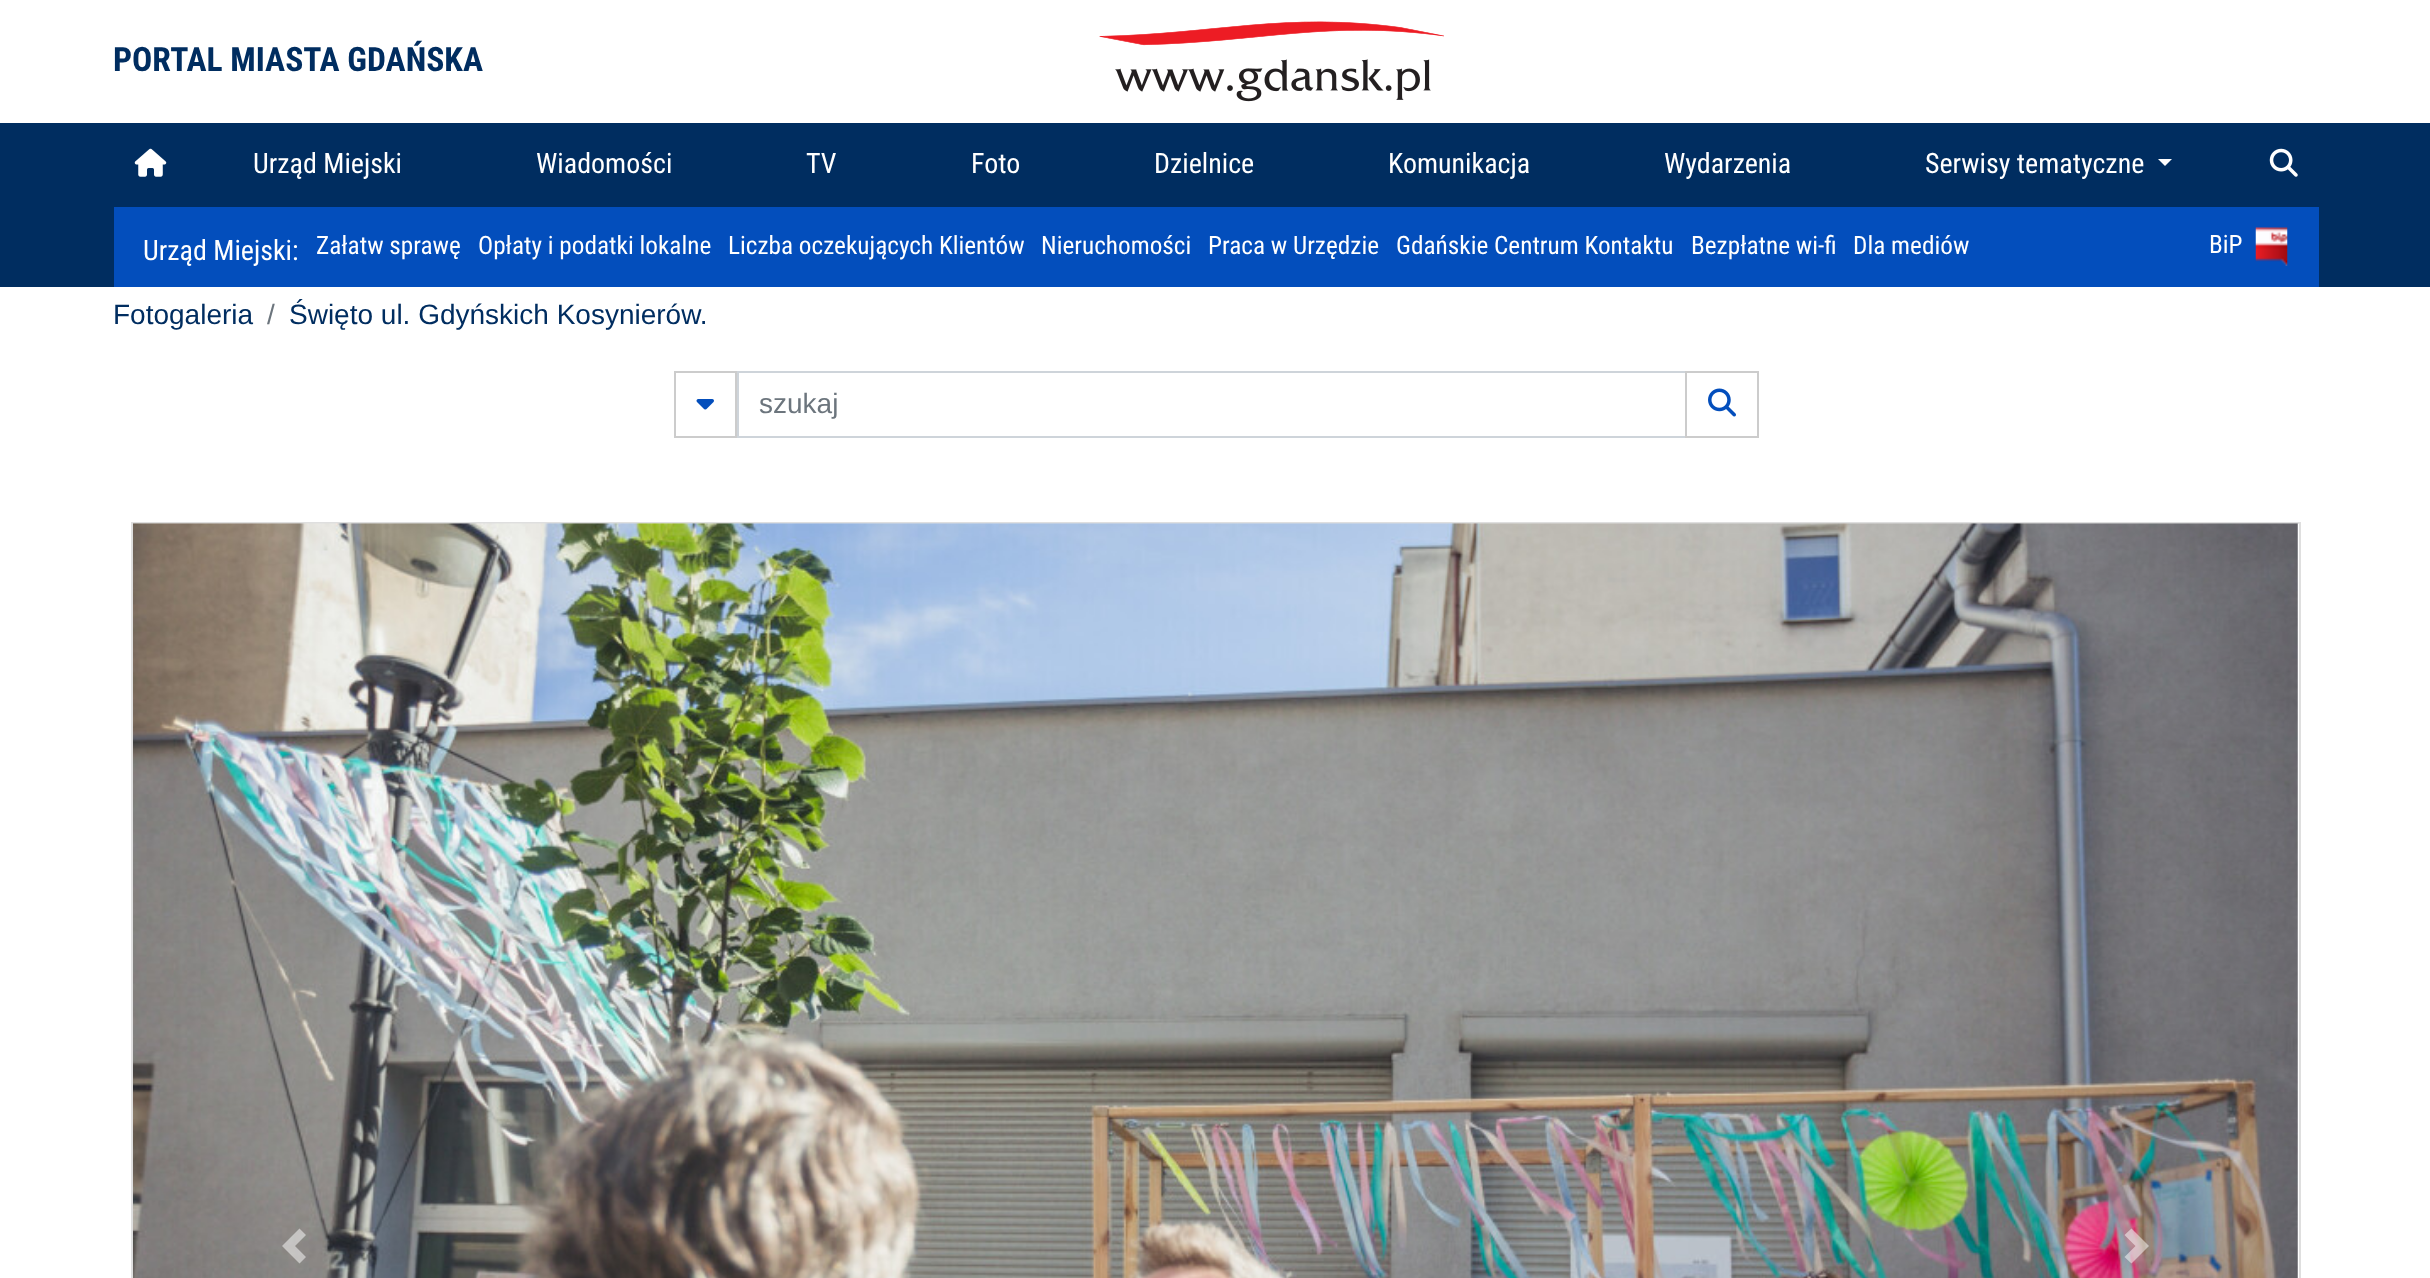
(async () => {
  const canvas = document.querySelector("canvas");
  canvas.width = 2430;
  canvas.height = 1278;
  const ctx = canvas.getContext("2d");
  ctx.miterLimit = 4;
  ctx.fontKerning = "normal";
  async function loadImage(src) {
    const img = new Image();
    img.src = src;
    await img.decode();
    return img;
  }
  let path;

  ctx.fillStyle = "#ffffff";
  ctx.fillRect(0, 0, 2430, 1278);
  ctx.drawImage(await loadImage("img/1.png"), 1099, 21, 345, 81);
  ctx.fillStyle = "#002d60";
  ctx.fillRect(0, 123, 2430, 164);
  ctx.drawImage(await loadImage("img/2.png"), 134, 148, 33, 29);
  ctx.fillStyle = "#ffffff";
  path = new Path2D("M2158 159H2172L2165 166Z");
  ctx.fill(path);
  ctx.drawImage(await loadImage("img/3.png"), 2269, 148, 29, 29);
  ctx.fillStyle = "#034ebc";
  ctx.fillRect(114, 207, 2205, 80);
  ctx.drawImage(await loadImage("img/4.png"), 2255, 227, 33, 39);
  ctx.strokeStyle = "#cccccc";
  ctx.lineWidth = 2;
  ctx.strokeRect(675, 372, 61, 65);
  ctx.drawImage(await loadImage("img/5.png"), 696, 399, 18, 11);
  ctx.strokeStyle = "#ced4da";
  ctx.strokeRect(738, 372, 948, 65);
  ctx.strokeStyle = "#cccccc";
  ctx.strokeRect(1686, 372, 72, 65);
  ctx.drawImage(await loadImage("img/6.png"), 1708, 388, 28, 29);
  ctx.strokeStyle = "#dfdfdf";
  ctx.strokeRect(132, 523, 2168, 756);
  ctx.drawImage(await loadImage("img/7.png"), 133, 523, 2165, 755);
  ctx.fillStyle = "rgba(255, 255, 255, 0.5)";
  path = new Path2D("M299.5 1228.5L282 1246L299.5 1263.5L306 1257L295 1246L306 1235Z");
  ctx.fill(path);
  path = new Path2D("M2131.5 1228.5L2124.5 1235L2135.5 1246L2124.5 1257L2131.5 1263.5L2149 1246Z");
  ctx.fill(path);
  ctx.font = "bold 33.6px Roboto Condensed";
  ctx.fillStyle = "#002d60";
  ctx.fillText("PORTAL MIASTA GDAŃSKA", 113, 71);
  ctx.font = "28px Roboto Condensed";
  ctx.fillStyle = "#ffffff";
  for (const [text, x, y] of [
    ["Urząd Miejski", 253, 173],
    ["Wiadomości", 536, 173],
    ["TV", 806, 173],
    ["Foto", 971, 173],
    ["Dzielnice", 1154, 173],
    ["Komunikacja", 1388, 173],
    ["Wydarzenia", 1664, 173],
    ["Serwisy tematyczne", 1925, 173],
    ["Urząd Miejski:", 143, 260],
  ]) {
    ctx.fillText(text, x, y);
  }
  ctx.font = "25.25px Roboto Condensed";
  for (const [text, x, y] of [
    ["Załatw sprawę", 316, 254],
    ["Opłaty i podatki lokalne", 478, 254],
    ["Liczba oczekujących Klientów", 728, 254],
    ["Nieruchomości", 1041, 254],
    ["Praca w Urzędzie", 1208, 254],
    ["Gdańskie Centrum Kontaktu", 1396, 254],
    ["Bezpłatne wi-fi", 1691, 254],
    ["Dla mediów", 1853, 254],
    ["BiP", 2209, 253],
  ]) {
    ctx.fillText(text, x, y);
  }
  ctx.font = "28px Liberation Sans";
  ctx.fillStyle = "#002d60";
  ctx.fillText("Fotogaleria", 113, 324);
  ctx.fillStyle = "#6c757d";
  ctx.fillText("/", 267, 324);
  ctx.fillStyle = "#002d60";
  ctx.fillText("Święto ul. Gdyńskich Kosynierów.", 289, 324);
  ctx.fillStyle = "#6c757d";
  ctx.fillText("szukaj", 759, 413);
})();
